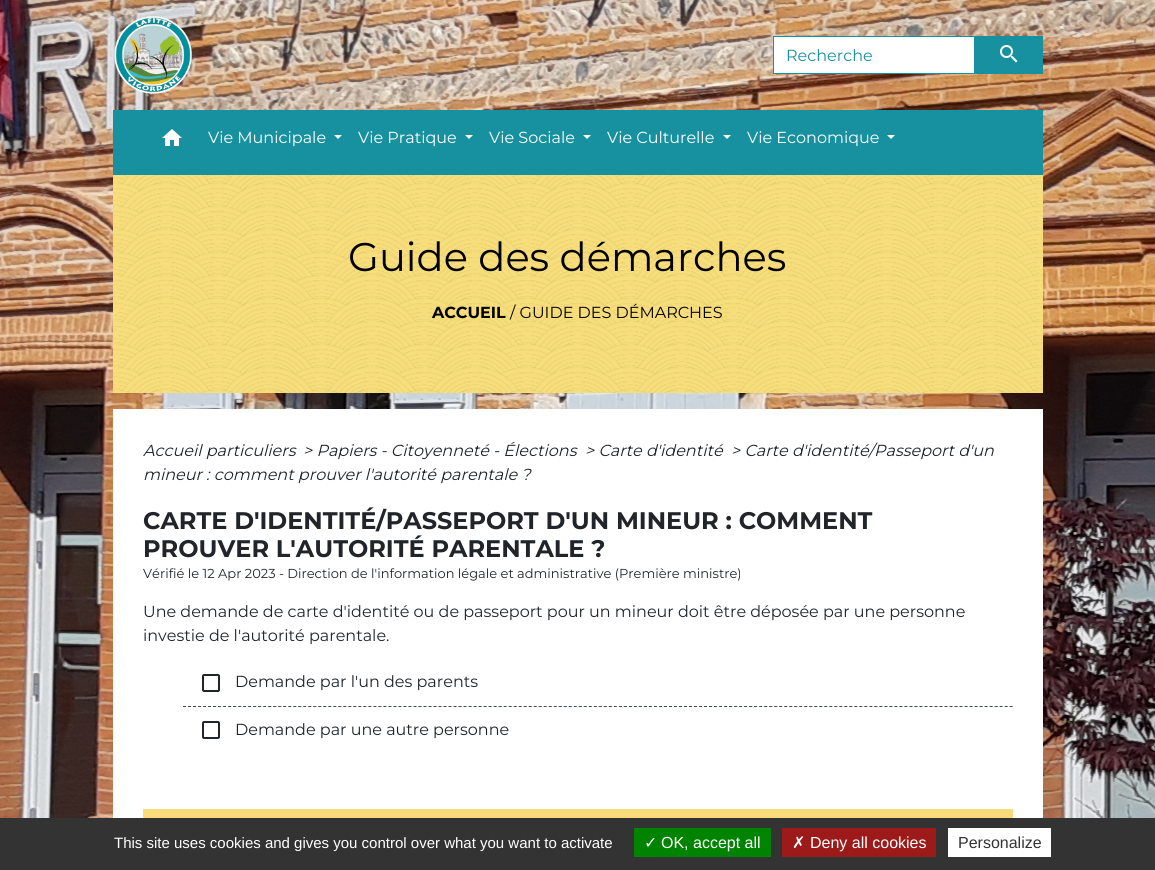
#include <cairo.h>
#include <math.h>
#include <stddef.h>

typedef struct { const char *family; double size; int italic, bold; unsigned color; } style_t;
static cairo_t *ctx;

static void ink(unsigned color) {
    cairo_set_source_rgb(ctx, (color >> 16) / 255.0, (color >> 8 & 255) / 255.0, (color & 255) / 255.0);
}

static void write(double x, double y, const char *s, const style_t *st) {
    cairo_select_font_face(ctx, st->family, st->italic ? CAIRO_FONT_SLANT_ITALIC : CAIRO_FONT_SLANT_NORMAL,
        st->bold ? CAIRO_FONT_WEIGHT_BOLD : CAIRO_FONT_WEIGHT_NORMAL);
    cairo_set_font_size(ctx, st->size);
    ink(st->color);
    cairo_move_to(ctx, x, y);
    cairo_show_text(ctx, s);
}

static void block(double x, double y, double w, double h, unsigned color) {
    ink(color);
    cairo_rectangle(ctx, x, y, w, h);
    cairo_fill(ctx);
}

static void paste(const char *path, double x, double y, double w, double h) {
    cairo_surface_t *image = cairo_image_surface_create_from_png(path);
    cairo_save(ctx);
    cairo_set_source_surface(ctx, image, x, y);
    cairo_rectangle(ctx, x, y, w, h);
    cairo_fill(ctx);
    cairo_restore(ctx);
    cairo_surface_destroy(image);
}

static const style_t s1 = {"Montserrat", 16, 0, 0, 0x1791a0};
static const style_t s2 = {"Montserrat", 16, 0, 0, 0xffffff};
static const style_t s3 = {"Montserrat", 40, 0, 0, 0x000000};
static const style_t s4 = {"Montserrat", 16, 0, 1, 0x000000};
static const style_t s5 = {"Montserrat", 16, 0, 0, 0x000000};
static const style_t s6 = {"Montserrat", 16, 1, 0, 0x212529};
static const style_t s7 = {"Montserrat", 24, 0, 1, 0x212529};
static const style_t s8 = {"Montserrat", 13, 0, 0, 0x212529};
static const style_t s9 = {"Montserrat", 16, 0, 0, 0x212529};
static const style_t s10 = {"Liberation Sans", 15, 0, 0, 0xffffff};
static const style_t s11 = {"DejaVu Sans", 16, 0, 0, 0xffffff};
static const style_t s12 = {"Liberation Sans", 16, 0, 0, 0xffffff};
static const style_t s13 = {"Liberation Sans", 16, 0, 0, 0x333333};

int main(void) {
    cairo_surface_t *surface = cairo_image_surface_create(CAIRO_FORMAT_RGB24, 1155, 870);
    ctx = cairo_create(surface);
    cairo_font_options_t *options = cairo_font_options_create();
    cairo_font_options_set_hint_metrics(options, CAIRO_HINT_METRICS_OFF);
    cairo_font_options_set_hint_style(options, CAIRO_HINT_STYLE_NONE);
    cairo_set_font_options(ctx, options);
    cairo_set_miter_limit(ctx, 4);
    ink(0xffffff);
    cairo_paint(ctx);
    paste("pic1.png", 0, 0, 1155, 818);
    paste("pic2.png", 114, 16, 78, 78);
    ink(0xffffff);
    cairo_rectangle(ctx, 773.5, 36.5, 201, 37);
    cairo_fill_preserve(ctx);
    ink(0x1791a0);
    cairo_set_line_width(ctx, 1);
    cairo_stroke(ctx);
    write(786, 61, "Recherche", &s1);
    block(975, 36, 68, 38, 0x1791a0);
    paste("pic3.png", 1000, 45, 18, 18);
    block(113, 110, 930, 65, 0x1791a0);
    paste("pic4.png", 162, 129, 20, 17);
    write(208, 143, "Vie Municipale", &s2);
    cairo_new_path(ctx);
    cairo_move_to(ctx, 334, 135);
    cairo_line_to(ctx, 342, 135);
    cairo_line_to(ctx, 338, 139);
    cairo_close_path(ctx);
    cairo_fill(ctx);
    write(358, 143, "Vie Pratique", &s2);
    cairo_new_path(ctx);
    cairo_move_to(ctx, 465, 135);
    cairo_line_to(ctx, 473, 135);
    cairo_line_to(ctx, 469, 139);
    cairo_close_path(ctx);
    cairo_fill(ctx);
    write(489, 143, "Vie Sociale", &s2);
    cairo_new_path(ctx);
    cairo_move_to(ctx, 583, 135);
    cairo_line_to(ctx, 591, 135);
    cairo_line_to(ctx, 587, 139);
    cairo_close_path(ctx);
    cairo_fill(ctx);
    write(607, 143, "Vie Culturelle", &s2);
    cairo_new_path(ctx);
    cairo_move_to(ctx, 723, 135);
    cairo_line_to(ctx, 731, 135);
    cairo_line_to(ctx, 727, 139);
    cairo_close_path(ctx);
    cairo_fill(ctx);
    write(747, 143, "Vie Economique", &s2);
    cairo_new_path(ctx);
    cairo_move_to(ctx, 887, 135);
    cairo_line_to(ctx, 895, 135);
    cairo_line_to(ctx, 891, 139);
    cairo_close_path(ctx);
    cairo_fill(ctx);
    block(113, 175, 930, 218, 0xf8de7b);
    paste("pic5.png", 113, 175, 930, 218);
    write(348, 271, "Guide des démarches", &s3);
    write(432, 318, "ACCUEIL", &s4);
    write(510, 318, "/ GUIDE DES DÉMARCHES", &s5);
    block(113, 409, 930, 409, 0xffffff);
    write(143, 456, "Accueil particuliers", &s6);
    write(303, 456, "> Papiers - Citoyenneté - Élections", &s6);
    write(585, 456, "> Carte d'identité", &s6);
    write(731, 456, "> Carte d'identité/Passeport d'un", &s6);
    write(143, 480, "mineur : comment prouver l'autorité parentale ?", &s6);
    write(143, 529, "CARTE D'IDENTITÉ/PASSEPORT D'UN MINEUR : COMMENT", &s7);
    write(143, 557, "PROUVER L'AUTORITÉ PARENTALE ?", &s7);
    write(143, 578, "Vérifié le 12 Apr 2023 - Direction de l'information légale et administrative (Première ministre)", &s8);
    write(143, 617, "Une demande de carte d'identité ou de passeport pour un mineur doit être déposée par une personne", &s9);
    write(143, 641, "investie de l'autorité parentale.", &s9);
    paste("pic6.png", 202, 674, 18, 18);
    write(235, 687, "Demande par l'un des parents", &s9);
    cairo_new_path(ctx);
    cairo_move_to(ctx, 183, 706.5);
    cairo_line_to(ctx, 1013, 706.5);
    ink(0x414856);
    cairo_set_dash(ctx, (double[]){3, 2.01}, 2, 0);
    cairo_stroke(ctx);
    paste("pic6.png", 202, 721, 18, 18);
    write(235, 735, "Demande par une autre personne", &s9);
    cairo_rectangle(ctx, 143.5, 809.5, 869, 52);
    ink(0xfadb7b);
    cairo_set_dash(ctx, NULL, 0, 0);
    cairo_stroke(ctx);
    block(144, 810, 868, 8, 0xfadb7b);
    block(0, 818, 1155, 52, 0x333333);
    write(114, 848, "This site uses cookies and gives you control over what you want to activate", &s10);
    block(634, 828, 137, 29, 0x008300);
    write(644, 848, "✓", &s11);
    write(661, 848, "OK, accept all", &s12);
    block(782, 828, 154, 29, 0x9c1a1a);
    write(792, 848, "✗", &s11);
    write(810, 848, "Deny all cookies", &s12);
    block(948, 828, 103, 29, 0xffffff);
    write(958, 848, "Personalize", &s13);
    cairo_surface_write_to_png(surface, "screenshot.png");
    cairo_font_options_destroy(options);
    cairo_destroy(ctx);
    cairo_surface_destroy(surface);
    return 0;
}
